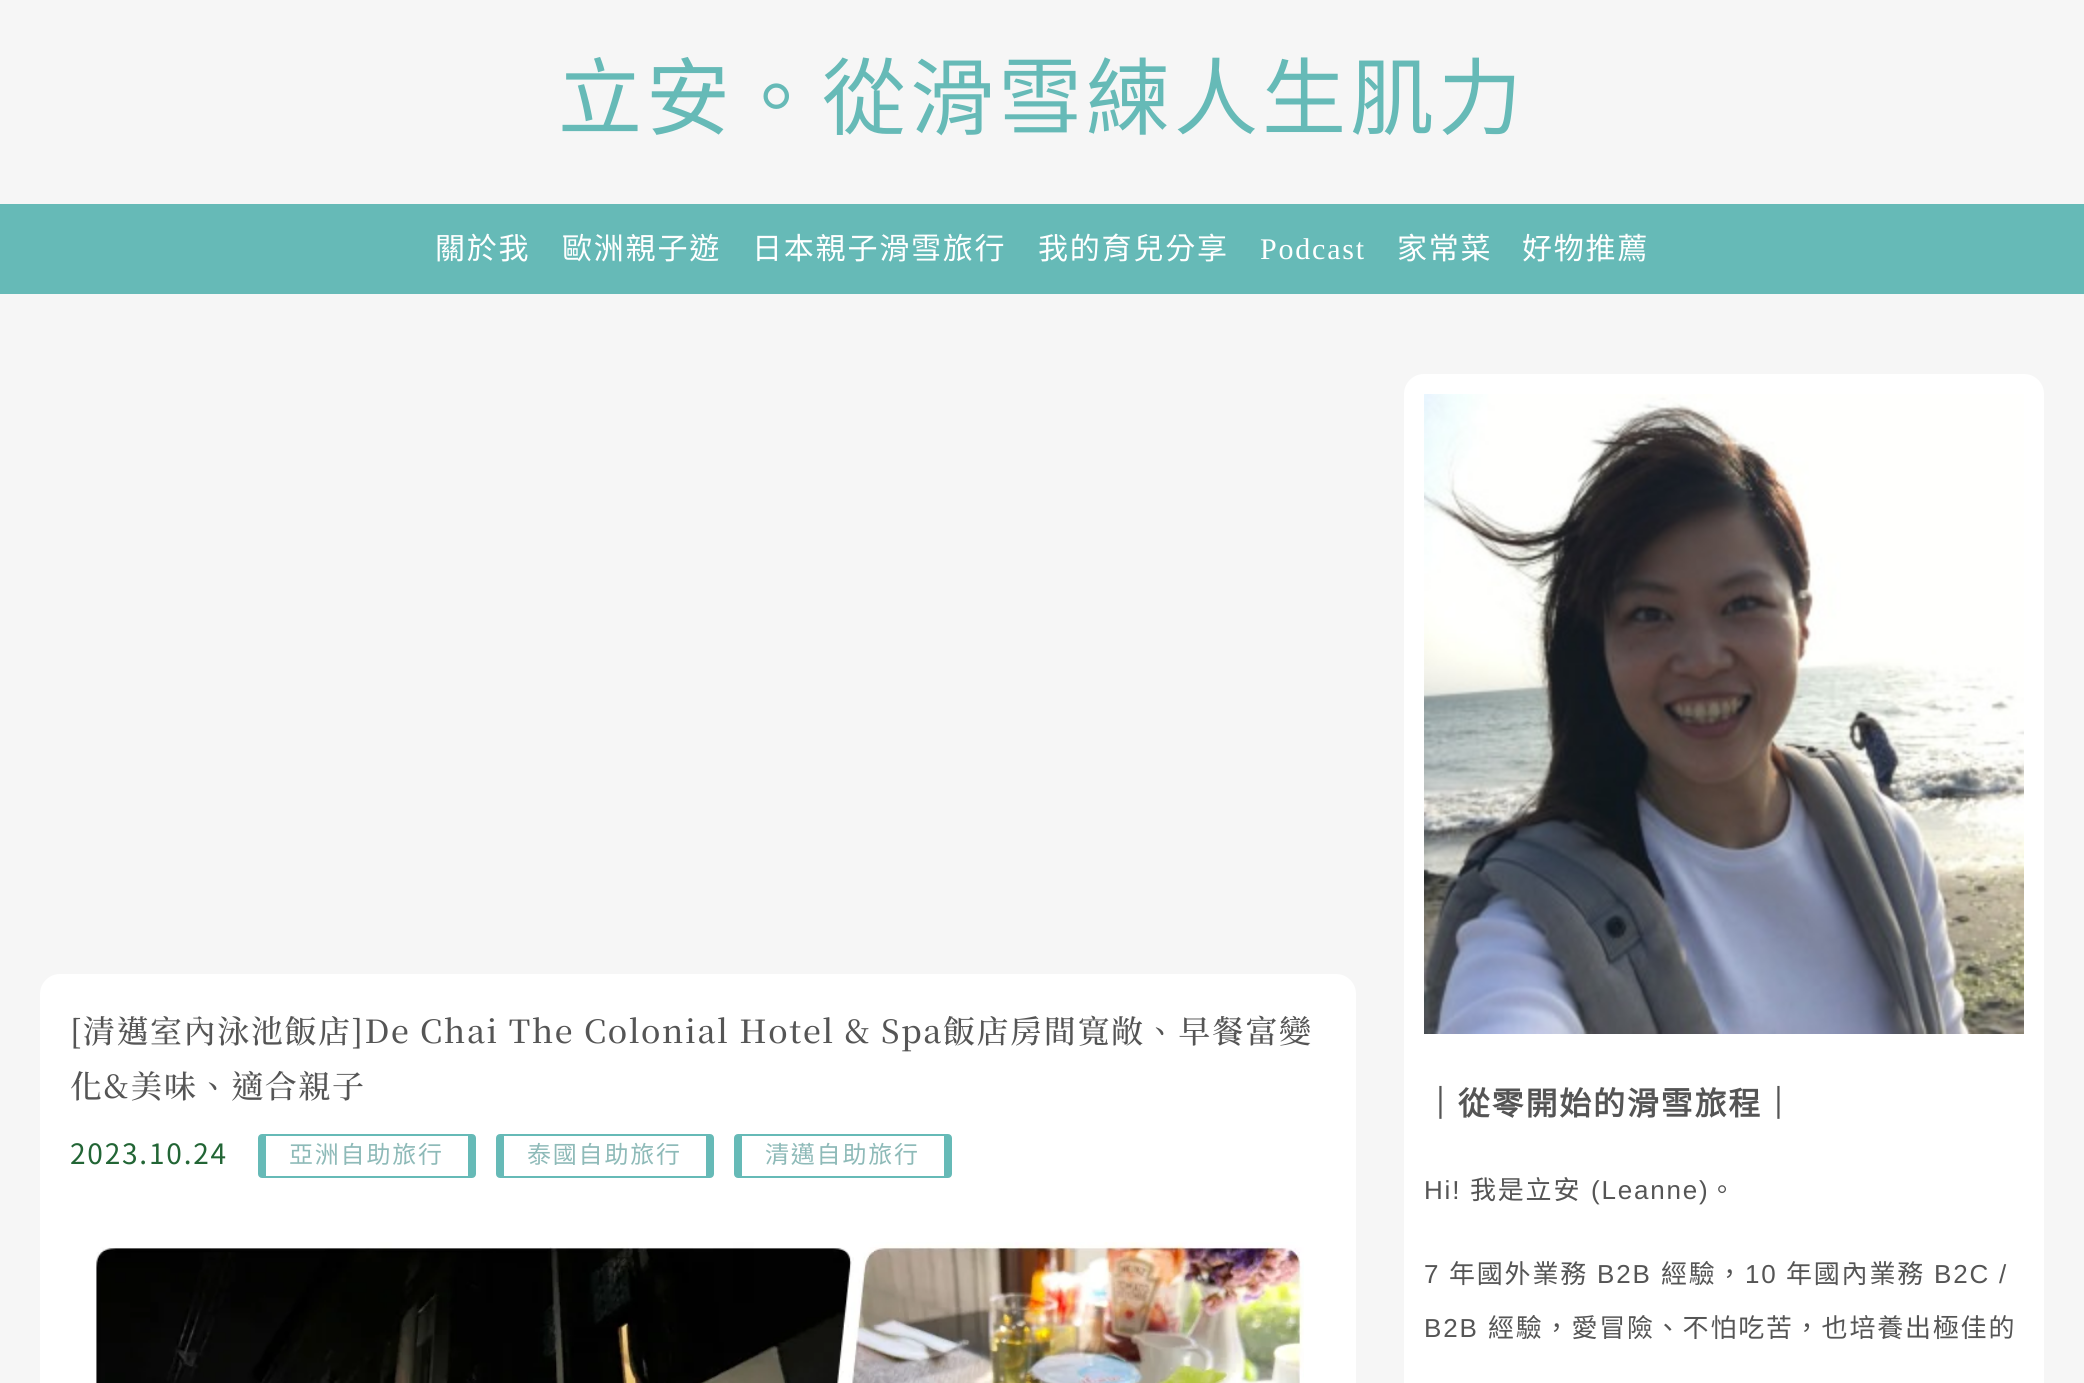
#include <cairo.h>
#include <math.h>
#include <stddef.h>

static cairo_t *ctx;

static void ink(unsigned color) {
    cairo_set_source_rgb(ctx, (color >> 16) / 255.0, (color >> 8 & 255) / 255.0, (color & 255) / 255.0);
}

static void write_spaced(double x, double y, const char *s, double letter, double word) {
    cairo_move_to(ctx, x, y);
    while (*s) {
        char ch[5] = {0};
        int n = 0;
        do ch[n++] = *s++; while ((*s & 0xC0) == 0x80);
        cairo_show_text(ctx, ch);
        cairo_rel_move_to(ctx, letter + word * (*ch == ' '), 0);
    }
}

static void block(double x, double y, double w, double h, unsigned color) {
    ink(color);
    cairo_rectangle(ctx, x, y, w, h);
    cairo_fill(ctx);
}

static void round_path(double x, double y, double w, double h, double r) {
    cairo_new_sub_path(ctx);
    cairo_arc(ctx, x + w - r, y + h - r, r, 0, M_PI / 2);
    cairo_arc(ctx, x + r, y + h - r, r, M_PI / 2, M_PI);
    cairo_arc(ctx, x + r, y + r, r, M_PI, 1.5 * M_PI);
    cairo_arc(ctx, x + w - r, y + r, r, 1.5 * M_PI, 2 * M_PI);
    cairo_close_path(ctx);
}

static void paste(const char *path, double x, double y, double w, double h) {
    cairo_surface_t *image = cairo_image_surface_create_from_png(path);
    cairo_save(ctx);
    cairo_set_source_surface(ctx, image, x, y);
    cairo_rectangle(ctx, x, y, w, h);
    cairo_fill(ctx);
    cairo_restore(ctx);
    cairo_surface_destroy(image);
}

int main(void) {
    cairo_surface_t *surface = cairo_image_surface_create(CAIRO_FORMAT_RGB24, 2084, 1383);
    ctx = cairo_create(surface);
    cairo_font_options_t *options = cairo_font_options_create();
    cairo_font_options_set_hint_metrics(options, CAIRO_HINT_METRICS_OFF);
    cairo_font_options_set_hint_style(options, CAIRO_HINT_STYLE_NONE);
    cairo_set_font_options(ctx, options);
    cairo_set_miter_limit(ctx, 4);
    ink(0xf6f6f6);
    cairo_paint(ctx);
    cairo_select_font_face(ctx, "Noto Sans CJK TC", CAIRO_FONT_SLANT_NORMAL, CAIRO_FONT_WEIGHT_NORMAL);
    cairo_set_font_size(ctx, 84);
    ink(0x66bab7);
    write_spaced(558, 128, "立安。從滑雪練人生肌力", 4, 0);
    block(0, 204, 2084, 90, 0x66bab7);
    cairo_set_font_size(ctx, 30);
    ink(0xffffff);
    write_spaced(435, 259, "關於我", 1.8, 0);
    write_spaced(562, 259, "歐洲親子遊", 1.8, 0);
    write_spaced(752, 259, "日本親子滑雪旅行", 1.8, 0);
    write_spaced(1038, 259, "我的育兒分享", 1.8, 0);
    cairo_select_font_face(ctx, "Liberation Serif", CAIRO_FONT_SLANT_NORMAL, CAIRO_FONT_WEIGHT_NORMAL);
    write_spaced(1260, 259, "Podcast", 1.8, 0);
    cairo_select_font_face(ctx, "Noto Sans CJK TC", CAIRO_FONT_SLANT_NORMAL, CAIRO_FONT_WEIGHT_NORMAL);
    write_spaced(1397, 259, "家常菜", 1.8, 0);
    write_spaced(1522, 259, "好物推薦", 1.8, 0);
    round_path(40, 974, 1316, 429, 20);
    cairo_fill(ctx);
    cairo_select_font_face(ctx, "Noto Serif TC Medium", CAIRO_FONT_SLANT_NORMAL, CAIRO_FONT_WEIGHT_NORMAL);
    cairo_set_font_size(ctx, 32);
    ink(0x555555);
    write_spaced(70, 1043, "[清邁室內泳池飯店]De Chai The Colonial Hotel & Spa飯店房間寬敞、早餐富變", 1.6, 0);
    write_spaced(70, 1098, "化&美味、適合親子", 1.6, 0);
    cairo_select_font_face(ctx, "Noto Sans TC", CAIRO_FONT_SLANT_NORMAL, CAIRO_FONT_WEIGHT_NORMAL);
    cairo_set_font_size(ctx, 28);
    ink(0x226535);
    write_spaced(70, 1164, "2023.10.24", 1.8, 0);
    round_path(259, 1135, 216, 42, 3);
    ink(0x66bab7);
    cairo_stroke(ctx);
    block(468, 1136, 6, 40, 0x66bab7);
    block(260, 1136, 6, 40, 0x66bab7);
    cairo_select_font_face(ctx, "Noto Sans CJK TC", CAIRO_FONT_SLANT_NORMAL, CAIRO_FONT_WEIGHT_NORMAL);
    cairo_set_font_size(ctx, 24);
    ink(0x8ebab8);
    write_spaced(289, 1163, "亞洲自助旅行", 1.8, 0);
    round_path(497, 1135, 216, 42, 3);
    ink(0x66bab7);
    cairo_stroke(ctx);
    block(706, 1136, 6, 40, 0x66bab7);
    block(498, 1136, 6, 40, 0x66bab7);
    ink(0x8ebab8);
    write_spaced(527, 1163, "泰國自助旅行", 1.8, 0);
    round_path(735, 1135, 216, 42, 3);
    ink(0x66bab7);
    cairo_stroke(ctx);
    block(944, 1136, 6, 40, 0x66bab7);
    block(736, 1136, 6, 40, 0x66bab7);
    ink(0x8ebab8);
    write_spaced(765, 1163, "清邁自助旅行", 1.8, 0);
    paste("pic1.png", 96, 1242, 1208, 141);
    ink(0xffffff);
    round_path(1404, 374, 640, 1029, 20);
    cairo_fill(ctx);
    paste("pic2.png", 1424, 394, 600, 640);
    cairo_select_font_face(ctx, "Noto Sans CJK TC", CAIRO_FONT_SLANT_NORMAL, CAIRO_FONT_WEIGHT_BOLD);
    cairo_set_font_size(ctx, 32);
    ink(0x555555);
    write_spaced(1424, 1115, "｜從零開始的滑雪旅程｜", 1.8, 0);
    cairo_select_font_face(ctx, "Liberation Sans", CAIRO_FONT_SLANT_NORMAL, CAIRO_FONT_WEIGHT_NORMAL);
    cairo_set_font_size(ctx, 26);
    write_spaced(1424, 1199, "Hi!", 1.8, 0);
    cairo_select_font_face(ctx, "Noto Sans CJK TC", CAIRO_FONT_SLANT_NORMAL, CAIRO_FONT_WEIGHT_NORMAL);
    write_spaced(1470, 1199, "我是立安", 1.8, 0);
    cairo_select_font_face(ctx, "Liberation Sans", CAIRO_FONT_SLANT_NORMAL, CAIRO_FONT_WEIGHT_NORMAL);
    write_spaced(1591, 1199, "(Leanne)", 1.8, 0);
    cairo_select_font_face(ctx, "Noto Sans CJK TC", CAIRO_FONT_SLANT_NORMAL, CAIRO_FONT_WEIGHT_NORMAL);
    write_spaced(1709, 1199, "。", 1.8, 0);
    cairo_select_font_face(ctx, "Liberation Sans", CAIRO_FONT_SLANT_NORMAL, CAIRO_FONT_WEIGHT_NORMAL);
    write_spaced(1424, 1283, "7", 1.8, 0);
    cairo_select_font_face(ctx, "Noto Sans CJK TC", CAIRO_FONT_SLANT_NORMAL, CAIRO_FONT_WEIGHT_NORMAL);
    write_spaced(1449, 1283, "年國外業務", 1.8, 0);
    cairo_select_font_face(ctx, "Liberation Sans", CAIRO_FONT_SLANT_NORMAL, CAIRO_FONT_WEIGHT_NORMAL);
    write_spaced(1597, 1283, "B2B", 1.8, 0);
    cairo_select_font_face(ctx, "Noto Sans CJK TC", CAIRO_FONT_SLANT_NORMAL, CAIRO_FONT_WEIGHT_NORMAL);
    write_spaced(1661, 1283, "經驗，", 1.8, 0);
    cairo_select_font_face(ctx, "Liberation Sans", CAIRO_FONT_SLANT_NORMAL, CAIRO_FONT_WEIGHT_NORMAL);
    write_spaced(1745, 1283, "10", 1.8, 0);
    cairo_select_font_face(ctx, "Noto Sans CJK TC", CAIRO_FONT_SLANT_NORMAL, CAIRO_FONT_WEIGHT_NORMAL);
    write_spaced(1786, 1283, "年國內業務", 1.8, 0);
    cairo_select_font_face(ctx, "Liberation Sans", CAIRO_FONT_SLANT_NORMAL, CAIRO_FONT_WEIGHT_NORMAL);
    write_spaced(1934, 1283, "B2C /", 1.8, 0);
    write_spaced(1424, 1337, "B2B", 1.8, 0);
    cairo_select_font_face(ctx, "Noto Sans CJK TC", CAIRO_FONT_SLANT_NORMAL, CAIRO_FONT_WEIGHT_NORMAL);
    write_spaced(1488, 1337, "經驗，愛冒險、不怕吃苦，也培養出極佳的", 1.8, 0);
    cairo_surface_write_to_png(surface, "screenshot.png");
    cairo_font_options_destroy(options);
    cairo_destroy(ctx);
    cairo_surface_destroy(surface);
    return 0;
}
